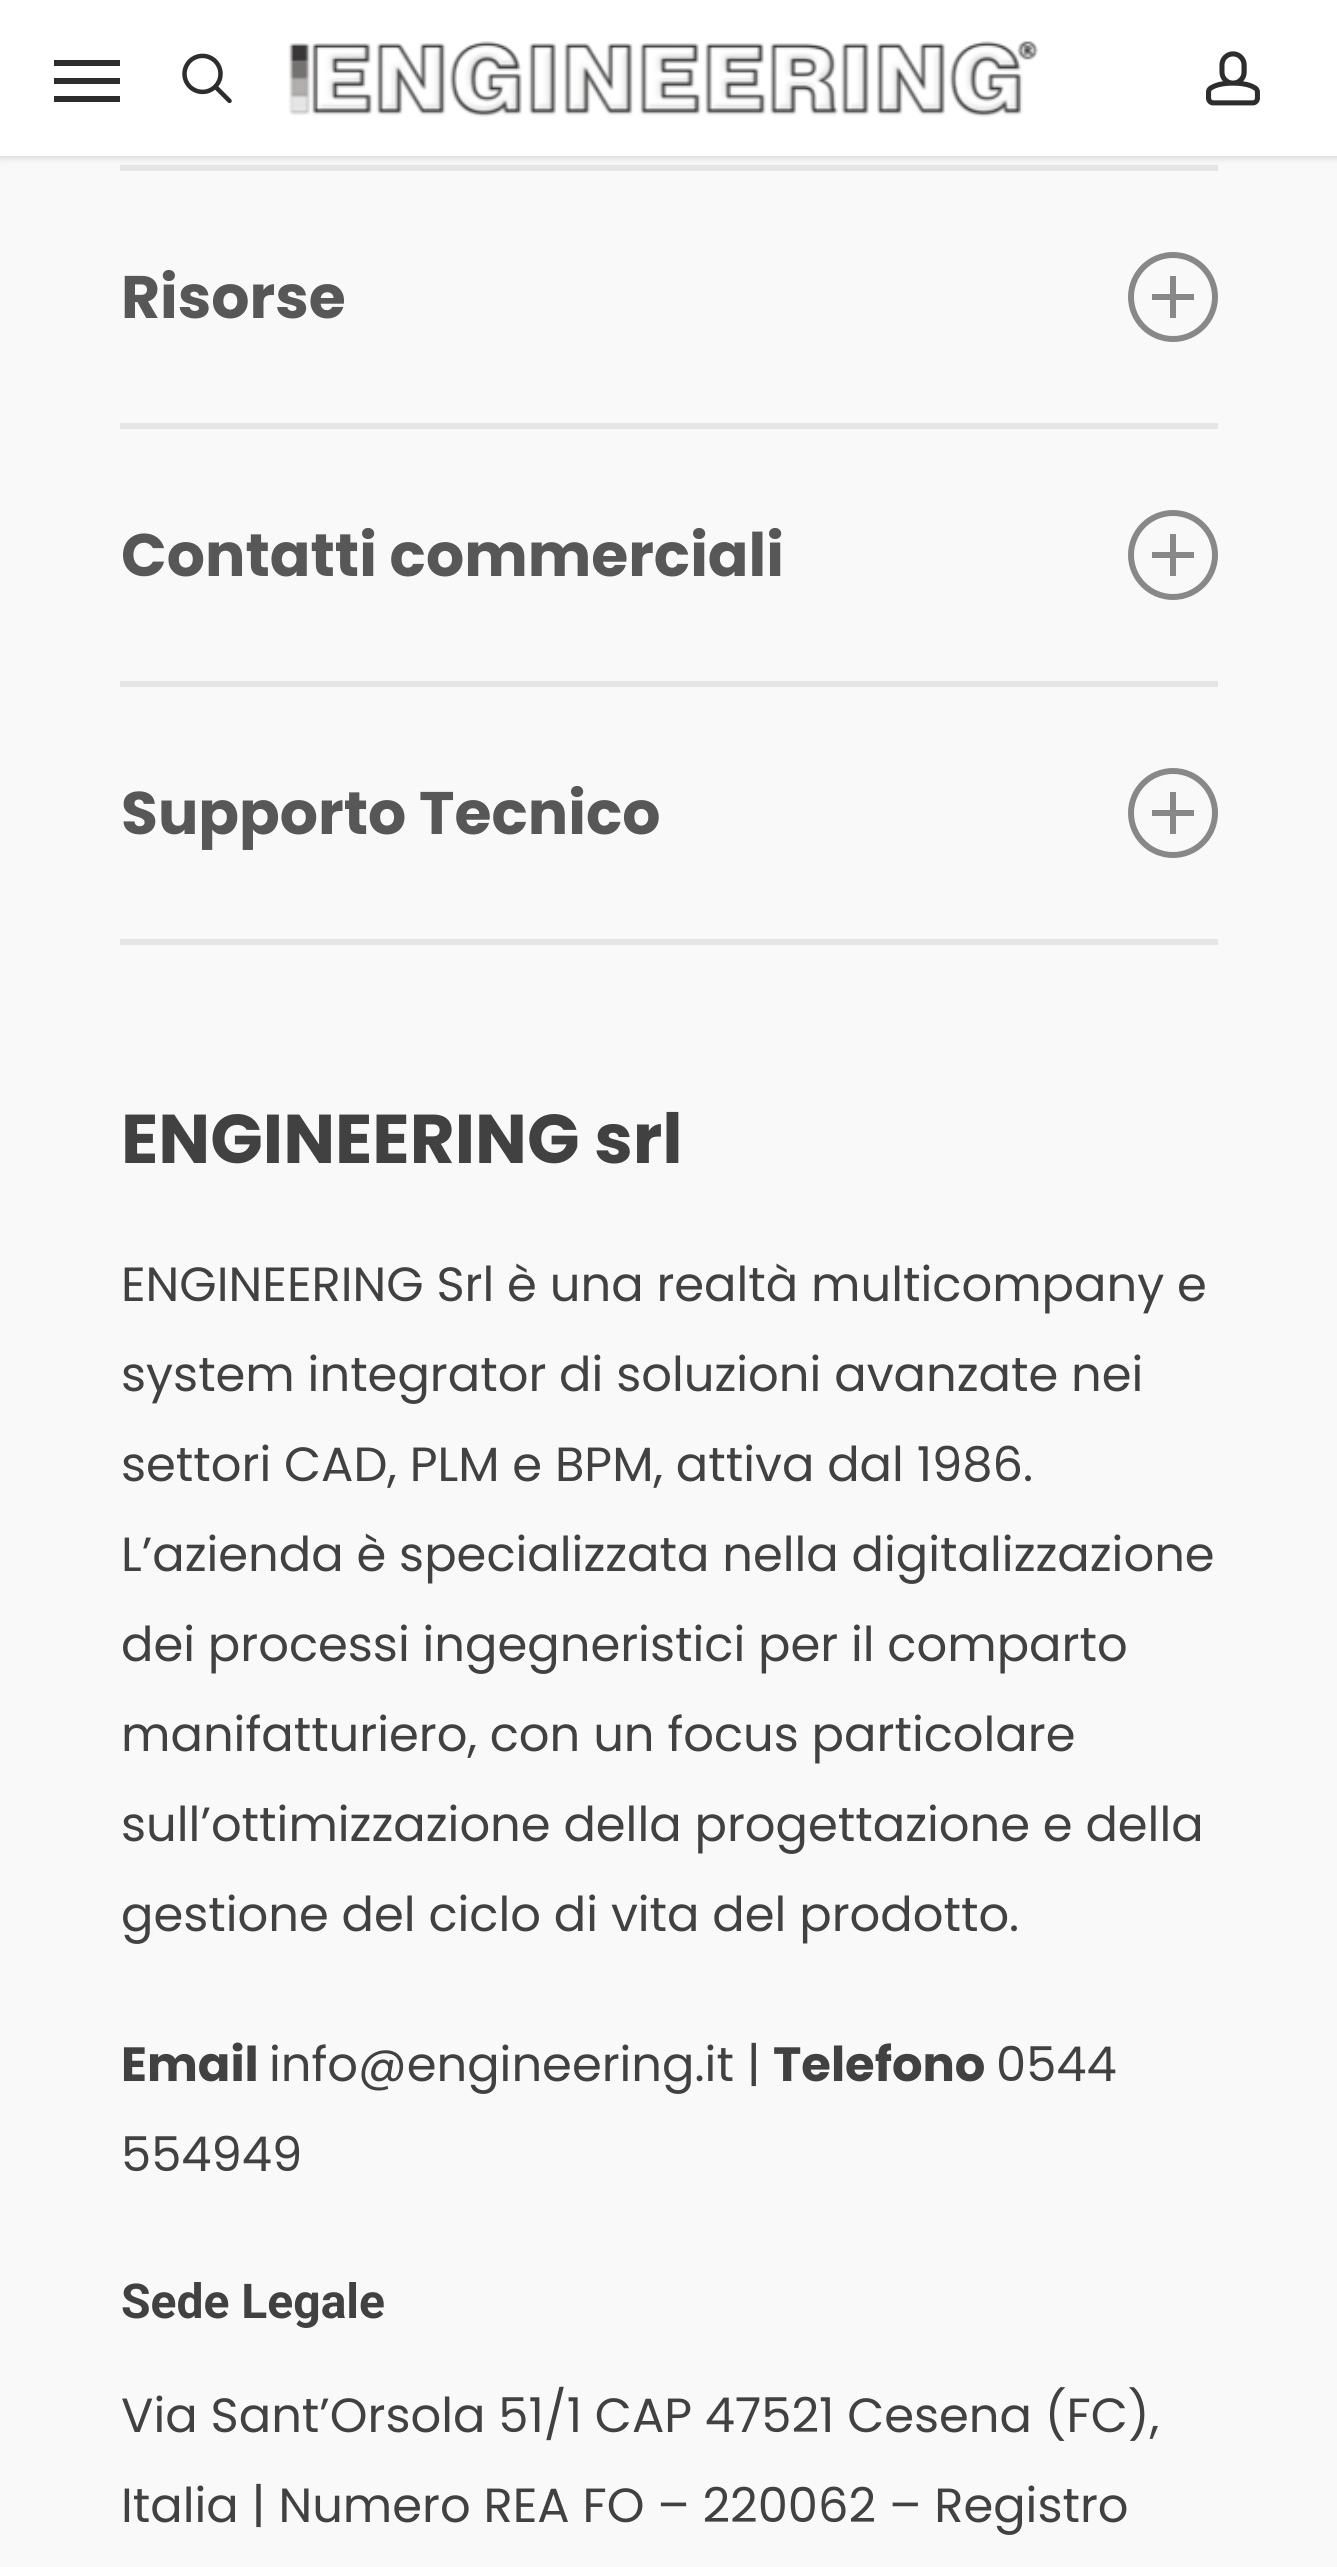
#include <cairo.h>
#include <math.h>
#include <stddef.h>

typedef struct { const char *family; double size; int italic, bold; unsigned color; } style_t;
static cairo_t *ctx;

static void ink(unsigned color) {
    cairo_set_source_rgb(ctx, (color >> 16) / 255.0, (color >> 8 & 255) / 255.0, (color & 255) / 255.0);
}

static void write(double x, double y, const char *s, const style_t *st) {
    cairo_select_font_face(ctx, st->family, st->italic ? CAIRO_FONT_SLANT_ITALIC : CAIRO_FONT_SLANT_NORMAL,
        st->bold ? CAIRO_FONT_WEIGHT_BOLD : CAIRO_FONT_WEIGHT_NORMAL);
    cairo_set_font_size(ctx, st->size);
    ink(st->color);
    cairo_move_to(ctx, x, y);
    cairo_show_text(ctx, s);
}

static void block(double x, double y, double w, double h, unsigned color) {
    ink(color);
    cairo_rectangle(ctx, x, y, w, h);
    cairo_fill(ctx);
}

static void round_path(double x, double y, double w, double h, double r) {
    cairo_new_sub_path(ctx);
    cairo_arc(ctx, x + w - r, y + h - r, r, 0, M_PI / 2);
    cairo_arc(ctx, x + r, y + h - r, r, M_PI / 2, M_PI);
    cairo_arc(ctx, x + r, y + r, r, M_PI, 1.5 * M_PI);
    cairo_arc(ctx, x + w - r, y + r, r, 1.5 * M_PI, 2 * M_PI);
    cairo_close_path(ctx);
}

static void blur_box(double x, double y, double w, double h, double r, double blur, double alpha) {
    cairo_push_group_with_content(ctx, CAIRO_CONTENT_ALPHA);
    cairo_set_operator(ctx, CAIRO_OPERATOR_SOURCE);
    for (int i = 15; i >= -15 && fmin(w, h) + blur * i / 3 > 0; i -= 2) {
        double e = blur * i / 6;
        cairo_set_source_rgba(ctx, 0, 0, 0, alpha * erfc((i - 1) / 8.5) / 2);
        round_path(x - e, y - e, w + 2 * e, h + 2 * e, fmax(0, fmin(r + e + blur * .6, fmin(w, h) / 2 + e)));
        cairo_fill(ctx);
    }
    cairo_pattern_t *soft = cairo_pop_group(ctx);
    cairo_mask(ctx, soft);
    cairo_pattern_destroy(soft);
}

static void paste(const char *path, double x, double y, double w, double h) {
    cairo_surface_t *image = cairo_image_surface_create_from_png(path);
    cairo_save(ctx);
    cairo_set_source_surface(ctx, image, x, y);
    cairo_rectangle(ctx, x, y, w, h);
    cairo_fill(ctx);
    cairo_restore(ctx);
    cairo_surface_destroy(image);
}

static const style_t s1 = {"Poppins", 60, 0, 1, 0x575757};
static const style_t s2 = {"Poppins", 69, 0, 1, 0x414141};
static const style_t s3 = {"Poppins", 48, 0, 0, 0x414141};
static const style_t s4 = {"Poppins", 48, 0, 1, 0x414141};
static const style_t s5 = {"Roboto", 48, 0, 1, 0x414141};

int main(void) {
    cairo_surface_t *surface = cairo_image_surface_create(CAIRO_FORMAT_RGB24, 1337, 2567);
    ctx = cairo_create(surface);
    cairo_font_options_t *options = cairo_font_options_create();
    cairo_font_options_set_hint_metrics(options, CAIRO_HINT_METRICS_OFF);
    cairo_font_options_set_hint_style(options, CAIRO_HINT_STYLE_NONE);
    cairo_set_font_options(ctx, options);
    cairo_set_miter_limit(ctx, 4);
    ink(0xf9f9f9);
    cairo_paint(ctx);
    block(120, 165, 1098, 6, 0xe5e5e5);
    ink(0x000000);
    blur_box(0, 0, 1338, 156, 0, 4.5, 0.22);
    block(0, 0, 1337, 156, 0xffffff);
    paste("pic1.png", 288, 41, 750, 76);
    block(54, 60, 66, 6, 0x2d2d2d);
    block(54, 96, 66, 6, 0x2d2d2d);
    block(54, 78, 66, 6, 0x2d2d2d);
    paste("pic2.png", 182, 53, 50, 51);
    paste("pic3.png", 1206, 51, 54, 55);
    block(120, 423, 1098, 6, 0xe5e5e5);
    write(121, 318, "Risorse", &s1);
    cairo_new_path(ctx);
    cairo_arc(ctx, 1173, 297, 42, 0, 2 * M_PI);
    ink(0x888888);
    cairo_set_line_width(ctx, 6);
    cairo_stroke(ctx);
    block(1152, 294, 42, 6, 0x888888);
    block(1170, 276, 6, 42, 0x888888);
    block(120, 681, 1098, 6, 0xe5e5e5);
    write(121, 576, "Contatti commerciali", &s1);
    cairo_new_path(ctx);
    cairo_arc(ctx, 1173, 555, 42, 0, 2 * M_PI);
    ink(0x888888);
    cairo_stroke(ctx);
    block(1152, 552, 42, 6, 0x888888);
    block(1170, 534, 6, 42, 0x888888);
    block(120, 939, 1098, 6, 0xe5e5e5);
    write(121, 834, "Supporto Tecnico", &s1);
    cairo_new_path(ctx);
    cairo_arc(ctx, 1173, 813, 42, 0, 2 * M_PI);
    ink(0x888888);
    cairo_stroke(ctx);
    block(1152, 810, 42, 6, 0x888888);
    block(1170, 792, 6, 42, 0x888888);
    write(121, 1163, "ENGINEERING srl", &s2);
    write(121, 1301, "ENGINEERING Srl è una realtà multicompany e", &s3);
    write(121, 1391, "system integrator di soluzioni avanzate nei", &s3);
    write(121, 1481, "settori CAD, PLM e BPM, attiva dal 1986.", &s3);
    write(121, 1571, "L’azienda è specializzata nella digitalizzazione", &s3);
    write(121, 1661, "dei processi ingegneristici per il comparto", &s3);
    write(121, 1751, "manifatturiero, con un focus particolare", &s3);
    write(121, 1841, "sull’ottimizzazione della progettazione e della", &s3);
    write(121, 1931, "gestione del ciclo di vita del prodotto.", &s3);
    write(121, 2081, "Email", &s4);
    write(269, 2081, "info@engineering.it |", &s3);
    write(773, 2081, "Telefono", &s4);
    write(996, 2081, "0544", &s3);
    write(121, 2171, "554949", &s3);
    write(121, 2318, "Sede Legale", &s5);
    write(121, 2432, "Via Sant’Orsola 51/1 CAP 47521 Cesena (FC),", &s3);
    write(121, 2522, "Italia | Numero REA FO – 220062 – Registro", &s3);
    cairo_surface_write_to_png(surface, "screenshot.png");
    cairo_font_options_destroy(options);
    cairo_destroy(ctx);
    cairo_surface_destroy(surface);
    return 0;
}
